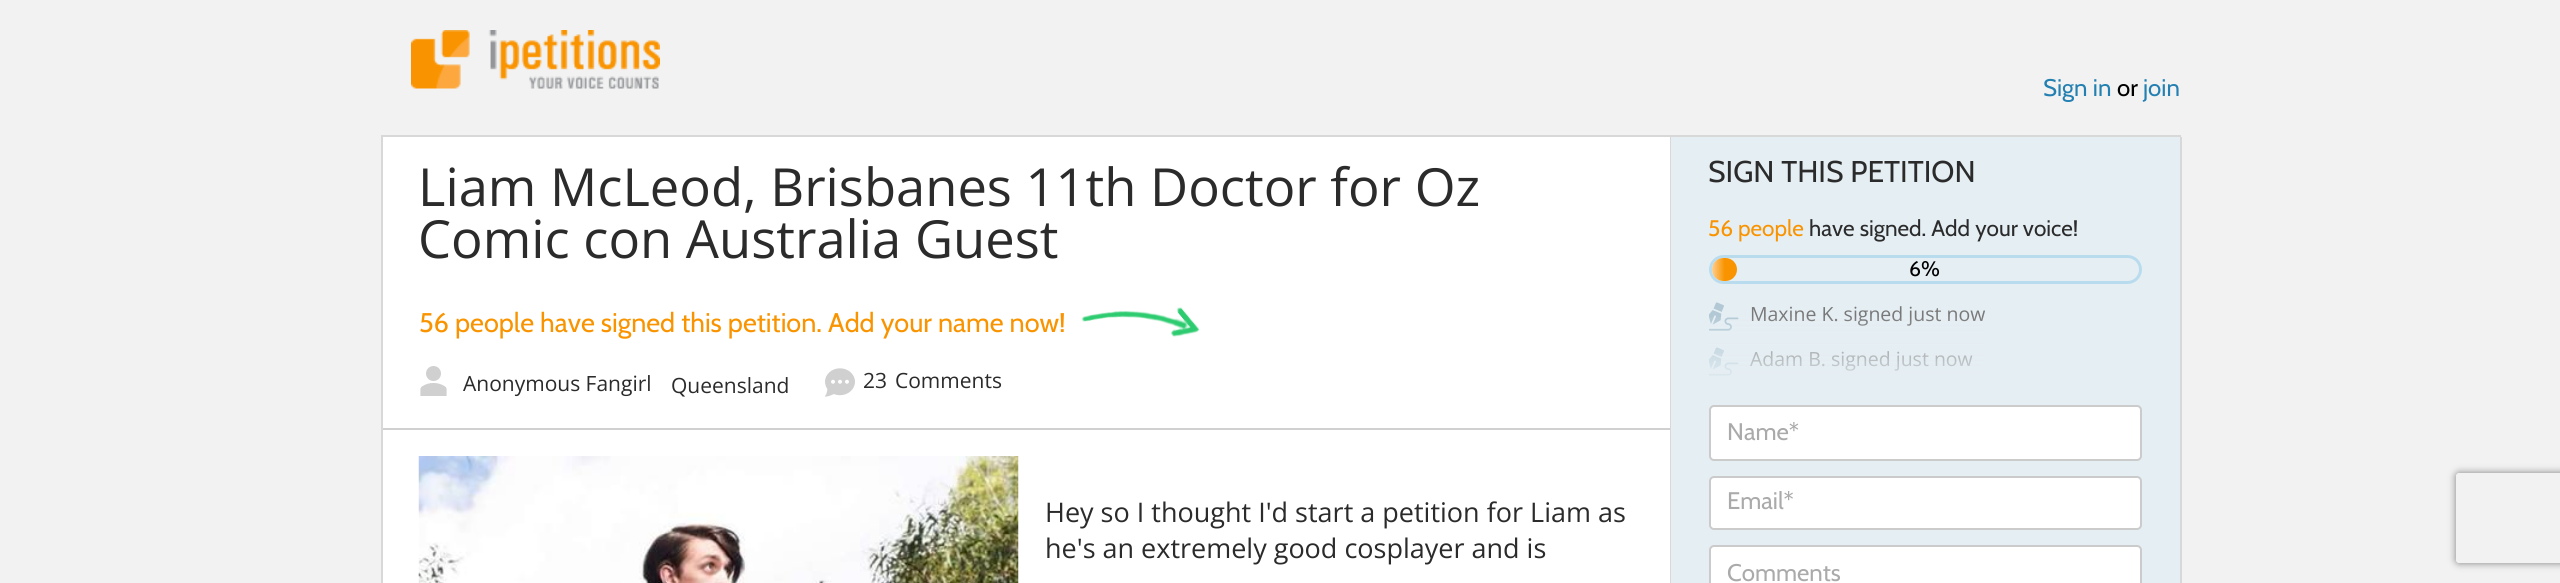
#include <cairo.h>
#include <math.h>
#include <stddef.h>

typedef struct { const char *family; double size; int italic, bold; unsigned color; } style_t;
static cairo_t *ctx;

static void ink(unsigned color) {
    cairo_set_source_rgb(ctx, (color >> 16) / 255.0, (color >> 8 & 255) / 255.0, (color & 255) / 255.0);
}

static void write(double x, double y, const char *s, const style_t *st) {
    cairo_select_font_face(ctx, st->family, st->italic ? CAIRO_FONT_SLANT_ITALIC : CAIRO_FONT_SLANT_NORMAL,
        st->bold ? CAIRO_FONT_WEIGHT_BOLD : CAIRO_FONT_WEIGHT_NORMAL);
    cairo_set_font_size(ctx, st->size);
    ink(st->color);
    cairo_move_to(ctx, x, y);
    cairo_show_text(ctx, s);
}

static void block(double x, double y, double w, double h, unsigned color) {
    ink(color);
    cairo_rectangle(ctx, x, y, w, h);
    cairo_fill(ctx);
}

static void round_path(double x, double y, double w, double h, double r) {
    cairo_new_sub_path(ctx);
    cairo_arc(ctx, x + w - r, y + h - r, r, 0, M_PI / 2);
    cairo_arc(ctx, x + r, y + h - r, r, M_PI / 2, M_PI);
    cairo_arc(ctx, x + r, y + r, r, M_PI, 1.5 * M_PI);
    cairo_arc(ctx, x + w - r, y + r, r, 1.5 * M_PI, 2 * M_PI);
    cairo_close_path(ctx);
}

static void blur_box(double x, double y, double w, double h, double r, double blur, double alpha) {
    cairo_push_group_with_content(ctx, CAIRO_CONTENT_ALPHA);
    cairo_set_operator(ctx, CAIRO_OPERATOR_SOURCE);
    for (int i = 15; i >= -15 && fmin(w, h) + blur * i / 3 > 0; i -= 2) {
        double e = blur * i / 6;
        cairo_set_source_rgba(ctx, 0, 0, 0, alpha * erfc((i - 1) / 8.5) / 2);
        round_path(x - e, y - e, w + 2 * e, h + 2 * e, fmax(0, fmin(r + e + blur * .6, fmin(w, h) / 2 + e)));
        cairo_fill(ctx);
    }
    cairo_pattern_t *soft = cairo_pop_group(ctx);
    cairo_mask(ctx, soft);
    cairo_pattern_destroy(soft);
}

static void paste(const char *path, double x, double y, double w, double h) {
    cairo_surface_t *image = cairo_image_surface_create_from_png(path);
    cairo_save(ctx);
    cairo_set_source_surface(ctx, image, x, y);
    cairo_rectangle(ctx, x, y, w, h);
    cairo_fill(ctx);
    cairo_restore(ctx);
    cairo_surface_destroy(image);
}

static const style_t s1 = {"Cabin", 24, 0, 0, 0x2380b1};
static const style_t s2 = {"Cabin", 24, 0, 0, 0x000000};
static const style_t s3 = {"Open Sans", 52.5, 0, 0, 0x2b2b2b};
static const style_t s4 = {"Cabin", 27, 0, 0, 0xf99400};
static const style_t s5 = {"Open Sans", 21, 0, 0, 0x2b2b2b};
static const style_t s6 = {"Open Sans", 27, 0, 0, 0x2b2b2b};
static const style_t s7 = {"Cabin", 30, 0, 0, 0x2b2b2b};
static const style_t s8 = {"Cabin", 22.5, 0, 0, 0xf99400};
static const style_t s9 = {"Cabin", 22.5, 0, 0, 0x2b2b2b};
static const style_t s10 = {"Cabin", 21, 0, 0, 0x000000};
static const style_t s11 = {"Open Sans", 19.5, 0, 0, 0x787878};
static const style_t s12 = {"Cabin", 24, 0, 0, 0xaaaaaa};

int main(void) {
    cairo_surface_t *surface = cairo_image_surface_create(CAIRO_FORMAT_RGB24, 2560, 583);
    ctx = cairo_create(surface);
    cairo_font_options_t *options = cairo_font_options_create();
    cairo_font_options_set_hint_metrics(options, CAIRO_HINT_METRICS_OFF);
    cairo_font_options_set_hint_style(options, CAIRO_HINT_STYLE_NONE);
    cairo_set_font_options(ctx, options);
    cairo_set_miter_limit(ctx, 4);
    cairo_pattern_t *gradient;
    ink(0xf2f2f2);
    cairo_paint(ctx);
    paste("pic1.png", 411, 30, 249, 59);
    write(2043, 96, "Sign in", &s1);
    write(2117, 96, "or", &s2);
    write(2143, 96, "join", &s1);
    block(383, 137, 1287, 446, 0xffffff);
    cairo_rectangle(ctx, 382, 136, 1798, 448);
    ink(0xd8d8d8);
    cairo_stroke(ctx);
    write(418, 206, "Liam McLeod, Brisbanes 11th Doctor for Oz", &s3);
    write(418, 258, "Comic con Australia Guest", &s3);
    write(419, 332, "56 people have signed this petition. Add your name now!", &s4);
    paste("pic2.png", 1081, 307, 119, 30);
    block(383, 428, 1287, 2, 0xd0d0d0);
    paste("pic3.png", 420, 366, 27, 30);
    write(463, 391, "Anonymous Fangirl", &s5);
    write(671, 393, "Queensland", &s5);
    paste("pic4.png", 825, 368, 30, 29);
    write(863, 388, "23", &s5);
    write(895, 388, "Comments", &s5);
    paste("pic5.png", 418, 456, 601, 127);
    write(1045, 522, "Hey so I thought I'd start a petition for Liam as", &s6);
    write(1045, 558, "he's an extremely good cosplayer and is", &s6);
    block(1670, 137, 1, 446, 0xd8d8d8);
    block(1671, 137, 509, 446, 0xe5eef3);
    block(2181, 137, 1, 446, 0xd8d8d8);
    write(1708, 182, "SIGN THIS PETITION", &s7);
    write(1708, 236, "56 people", &s8);
    write(1809, 236, "have signed. Add your voice!", &s9);
    round_path(1710.5, 256.5, 430, 26, 13);
    ink(0xb8dcee);
    cairo_set_line_width(ctx, 3);
    cairo_stroke(ctx);
    gradient = cairo_pattern_create_linear(1712, 269, 1737, 269);
    cairo_pattern_add_color_stop_rgba(gradient, 0, 1, 0.808, 0.565, 1);
    cairo_pattern_add_color_stop_rgba(gradient, 0.5, 0.976, 0.58, 0, 1);
    cairo_set_source(ctx, gradient);
    cairo_pattern_destroy(gradient);
    round_path(1712, 258, 25, 23, 11.5);
    cairo_fill(ctx);
    write(1909, 276, "6%", &s10);
    paste("pic6.png", 1709, 302, 30, 29);
    write(1750, 321, "Maxine K. signed just now", &s11);
    paste("pic6.png", 1709, 347, 30, 29);
    write(1750, 366, "Adam B. signed just now", &s11);
    gradient = cairo_pattern_create_linear(1925, 315, 1925, 390);
    cairo_pattern_add_color_stop_rgba(gradient, 0, 0.898, 0.933, 0.953, 0);
    cairo_pattern_add_color_stop_rgba(gradient, 1, 0.898, 0.933, 0.953, 1);
    cairo_set_source(ctx, gradient);
    cairo_pattern_destroy(gradient);
    cairo_rectangle(ctx, 1709, 317, 274, 59);
    cairo_fill(ctx);
    ink(0xffffff);
    round_path(1710, 406, 431, 54, 4);
    cairo_fill_preserve(ctx);
    ink(0xcbcbcb);
    cairo_set_line_width(ctx, 2);
    cairo_stroke(ctx);
    write(1727, 440, "Name*", &s12);
    ink(0xffffff);
    round_path(1710, 477, 431, 52, 4);
    cairo_fill_preserve(ctx);
    ink(0xcbcbcb);
    cairo_stroke(ctx);
    write(1727, 509, "Email*", &s12);
    ink(0xffffff);
    round_path(1710, 546, 431, 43, 4);
    cairo_fill_preserve(ctx);
    ink(0xcbcbcb);
    cairo_stroke(ctx);
    write(1727, 581, "Comments", &s12);
    cairo_save(ctx);
    cairo_set_fill_rule(ctx, CAIRO_FILL_RULE_EVEN_ODD);
    cairo_new_path(ctx);
    cairo_move_to(ctx, 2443, 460);
    cairo_line_to(ctx, 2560, 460);
    cairo_line_to(ctx, 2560, 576);
    cairo_line_to(ctx, 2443, 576);
    cairo_close_path(ctx);
    cairo_move_to(ctx, 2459, 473);
    cairo_line_to(ctx, 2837, 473);
    cairo_curve_to(ctx, 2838.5, 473, 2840, 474.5, 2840, 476);
    cairo_line_to(ctx, 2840, 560);
    cairo_curve_to(ctx, 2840, 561.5, 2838.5, 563, 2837, 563);
    cairo_line_to(ctx, 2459, 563);
    cairo_curve_to(ctx, 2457.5, 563, 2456, 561.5, 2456, 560);
    cairo_line_to(ctx, 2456, 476);
    cairo_curve_to(ctx, 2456, 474.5, 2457.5, 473, 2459, 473);
    cairo_close_path(ctx);
    cairo_clip(ctx);
    ink(0x808080);
    blur_box(2456, 473, 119, 90, 3, 4, 1);
    cairo_restore(ctx);
    cairo_surface_write_to_png(surface, "screenshot.png");
    cairo_font_options_destroy(options);
    cairo_destroy(ctx);
    cairo_surface_destroy(surface);
    return 0;
}
